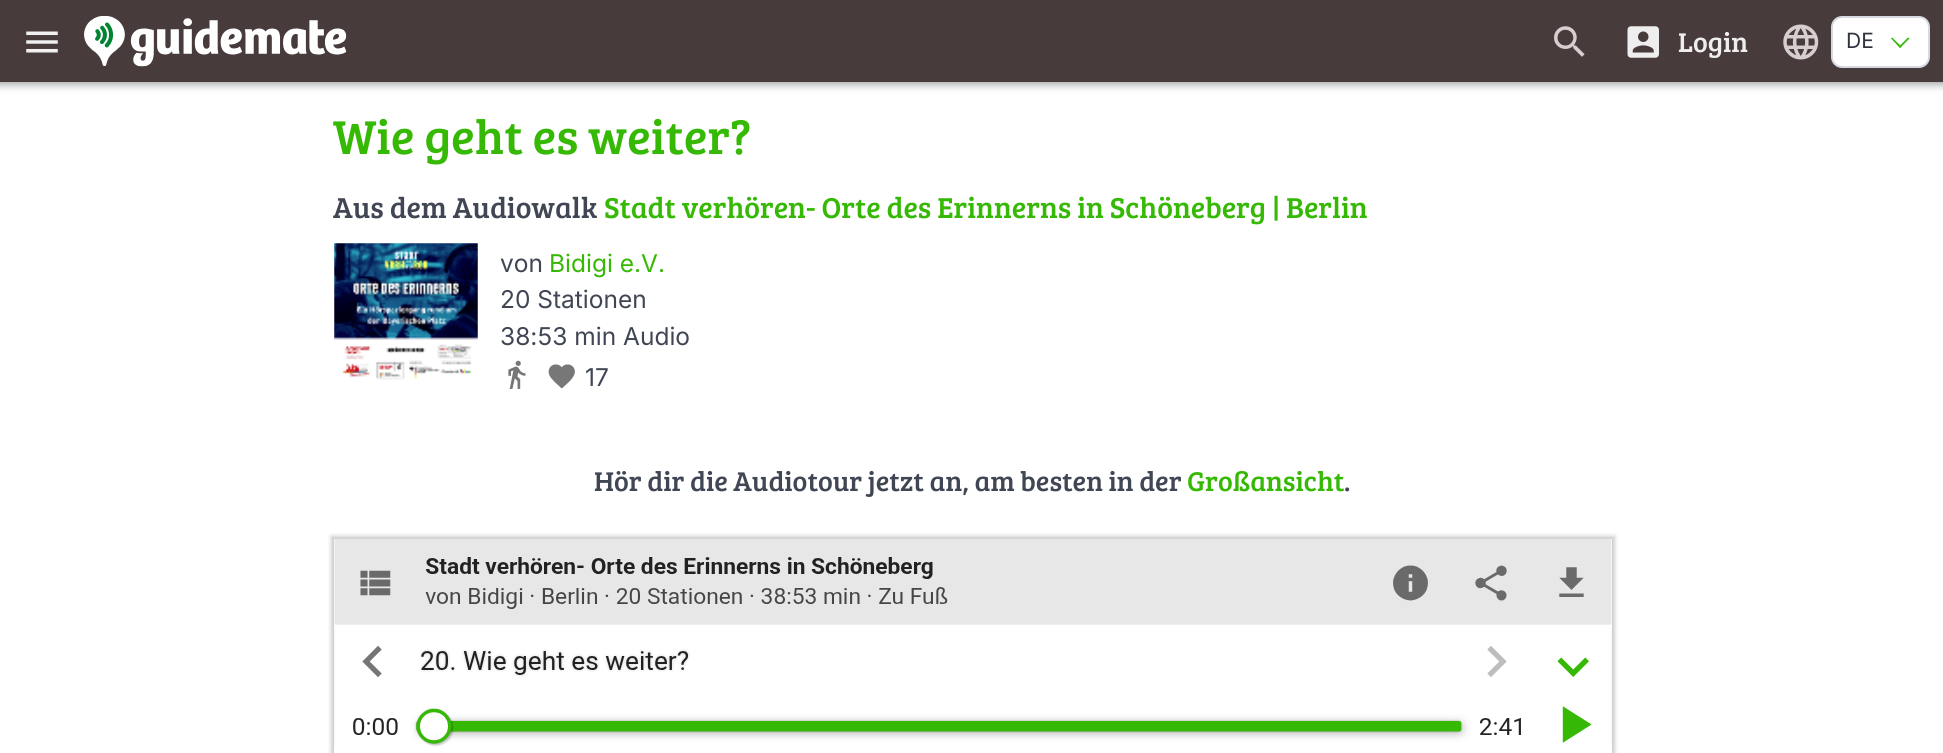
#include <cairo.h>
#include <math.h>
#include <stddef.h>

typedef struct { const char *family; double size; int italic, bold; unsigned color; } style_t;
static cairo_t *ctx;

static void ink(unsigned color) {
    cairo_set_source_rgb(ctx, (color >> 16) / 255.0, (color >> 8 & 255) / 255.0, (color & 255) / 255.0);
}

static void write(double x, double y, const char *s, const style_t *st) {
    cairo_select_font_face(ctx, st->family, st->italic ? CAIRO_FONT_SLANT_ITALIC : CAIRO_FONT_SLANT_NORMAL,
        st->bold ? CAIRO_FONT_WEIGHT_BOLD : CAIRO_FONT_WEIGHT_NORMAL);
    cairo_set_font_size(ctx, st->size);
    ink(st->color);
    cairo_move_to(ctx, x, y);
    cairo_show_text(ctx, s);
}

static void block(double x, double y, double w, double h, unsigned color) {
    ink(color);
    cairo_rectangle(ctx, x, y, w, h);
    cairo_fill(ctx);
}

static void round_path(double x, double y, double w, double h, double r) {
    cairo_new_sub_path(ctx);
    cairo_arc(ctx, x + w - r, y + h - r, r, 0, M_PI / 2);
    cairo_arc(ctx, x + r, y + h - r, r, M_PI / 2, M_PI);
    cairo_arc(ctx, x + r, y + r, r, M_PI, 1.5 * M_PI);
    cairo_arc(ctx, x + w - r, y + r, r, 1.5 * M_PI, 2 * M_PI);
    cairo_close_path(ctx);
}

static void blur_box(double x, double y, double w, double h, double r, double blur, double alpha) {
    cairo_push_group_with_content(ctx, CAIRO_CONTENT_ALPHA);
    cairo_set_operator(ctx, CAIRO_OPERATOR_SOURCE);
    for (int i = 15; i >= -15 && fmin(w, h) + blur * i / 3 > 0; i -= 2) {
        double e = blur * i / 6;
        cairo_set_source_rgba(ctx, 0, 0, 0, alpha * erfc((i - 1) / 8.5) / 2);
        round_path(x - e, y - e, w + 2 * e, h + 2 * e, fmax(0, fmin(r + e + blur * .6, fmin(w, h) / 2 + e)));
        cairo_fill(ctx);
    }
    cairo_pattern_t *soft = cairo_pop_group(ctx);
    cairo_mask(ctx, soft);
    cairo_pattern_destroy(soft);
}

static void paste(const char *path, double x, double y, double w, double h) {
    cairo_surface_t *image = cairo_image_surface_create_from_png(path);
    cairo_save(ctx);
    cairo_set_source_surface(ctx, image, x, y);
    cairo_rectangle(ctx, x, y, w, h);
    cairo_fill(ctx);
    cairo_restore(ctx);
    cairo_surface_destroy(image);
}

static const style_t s1 = {"Bree Serif", 28, 0, 0, 0xeeeeee};
static const style_t s2 = {"Inter", 21, 0, 0, 0x2e333d};
static const style_t s3 = {"Bree Serif", 49, 0, 0, 0x36b905};
static const style_t s4 = {"Bree Serif", 29.75, 0, 0, 0x404654};
static const style_t s5 = {"Bree Serif", 29.75, 0, 0, 0x36b905};
static const style_t s6 = {"Inter", 24.5, 0, 0, 0x404654};
static const style_t s7 = {"Inter", 24.5, 0, 0, 0x36b905};
static const style_t s8 = {"Bree Serif", 28, 0, 0, 0x404654};
static const style_t s9 = {"Bree Serif", 28, 0, 0, 0x36b905};

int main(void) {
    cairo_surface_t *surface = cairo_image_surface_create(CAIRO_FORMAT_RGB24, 1943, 753);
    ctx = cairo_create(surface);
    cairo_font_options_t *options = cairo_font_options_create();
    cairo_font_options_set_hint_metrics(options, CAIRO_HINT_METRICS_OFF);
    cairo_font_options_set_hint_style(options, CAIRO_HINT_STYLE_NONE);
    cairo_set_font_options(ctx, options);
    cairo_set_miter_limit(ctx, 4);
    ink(0xffffff);
    cairo_paint(ctx);
    ink(0x000000);
    blur_box(-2, -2, 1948, 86, 0, 4.5, 0.4);
    block(0, 0, 1943, 82, 0x473b3c);
    paste("pic1.png", 26, 31, 32, 22);
    paste("pic2.png", 84, 16, 263, 51);
    paste("pic3.png", 1554, 26, 31, 31);
    paste("pic4.png", 1627, 26, 32, 32);
    write(1678, 52, "Login", &s1);
    paste("pic5.png", 1783, 24, 36, 36);
    ink(0xffffff);
    round_path(1832, 17, 97, 50, 10);
    cairo_fill_preserve(ctx);
    ink(0xd6d9e0);
    cairo_stroke(ctx);
    write(1846, 48, "DE", &s2);
    ink(0x36b905);
    cairo_new_path(ctx);
    cairo_move_to(ctx, 1899, 46.5);
    cairo_line_to(ctx, 1908, 37.5);
    cairo_line_to(ctx, 1909.5, 38.5);
    cairo_line_to(ctx, 1900, 48);
    cairo_close_path(ctx);
    cairo_fill(ctx);
    cairo_new_path(ctx);
    cairo_move_to(ctx, 1891, 38.5);
    cairo_line_to(ctx, 1892, 37.5);
    cairo_line_to(ctx, 1901.5, 46.5);
    cairo_line_to(ctx, 1900, 48);
    cairo_close_path(ctx);
    cairo_fill(ctx);
    write(333, 154, "Wie geht es weiter?", &s3);
    write(333, 218, "Aus dem Audiowalk", &s4);
    write(604, 218, "Stadt verhören- Orte des Erinnerns in Schöneberg | Berlin", &s5);
    paste("pic6.png", 334, 243, 144, 137);
    write(500, 272, "von", &s6);
    write(549, 272, "Bidigi e.V.", &s7);
    write(500, 308, "20 Stationen", &s6);
    write(500, 345, "38:53 min Audio", &s6);
    paste("pic7.png", 508, 360, 18, 29);
    paste("pic8.png", 548, 364, 27, 25);
    write(585, 386, "17", &s6);
    write(594, 491, "Hör dir die Audiotour jetzt an, am besten in der", &s8);
    write(1187, 491, "Großansicht", &s9);
    write(1344, 491, ".", &s8);
    cairo_save(ctx);
    cairo_set_fill_rule(ctx, CAIRO_FILL_RULE_EVEN_ODD);
    cairo_new_path(ctx);
    cairo_move_to(ctx, 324, 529);
    cairo_line_to(ctx, 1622, 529);
    cairo_line_to(ctx, 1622, 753);
    cairo_line_to(ctx, 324, 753);
    cairo_close_path(ctx);
    cairo_move_to(ctx, 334, 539);
    cairo_line_to(ctx, 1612, 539);
    cairo_line_to(ctx, 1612, 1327);
    cairo_line_to(ctx, 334, 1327);
    cairo_close_path(ctx);
    cairo_clip(ctx);
    ink(0x000000);
    blur_box(331, 536, 1284, 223, 0, 2, 0.2);
    cairo_restore(ctx);
    paste("pic9.png", 334, 539, 1278, 208);
    cairo_surface_write_to_png(surface, "screenshot.png");
    cairo_font_options_destroy(options);
    cairo_destroy(ctx);
    cairo_surface_destroy(surface);
    return 0;
}
